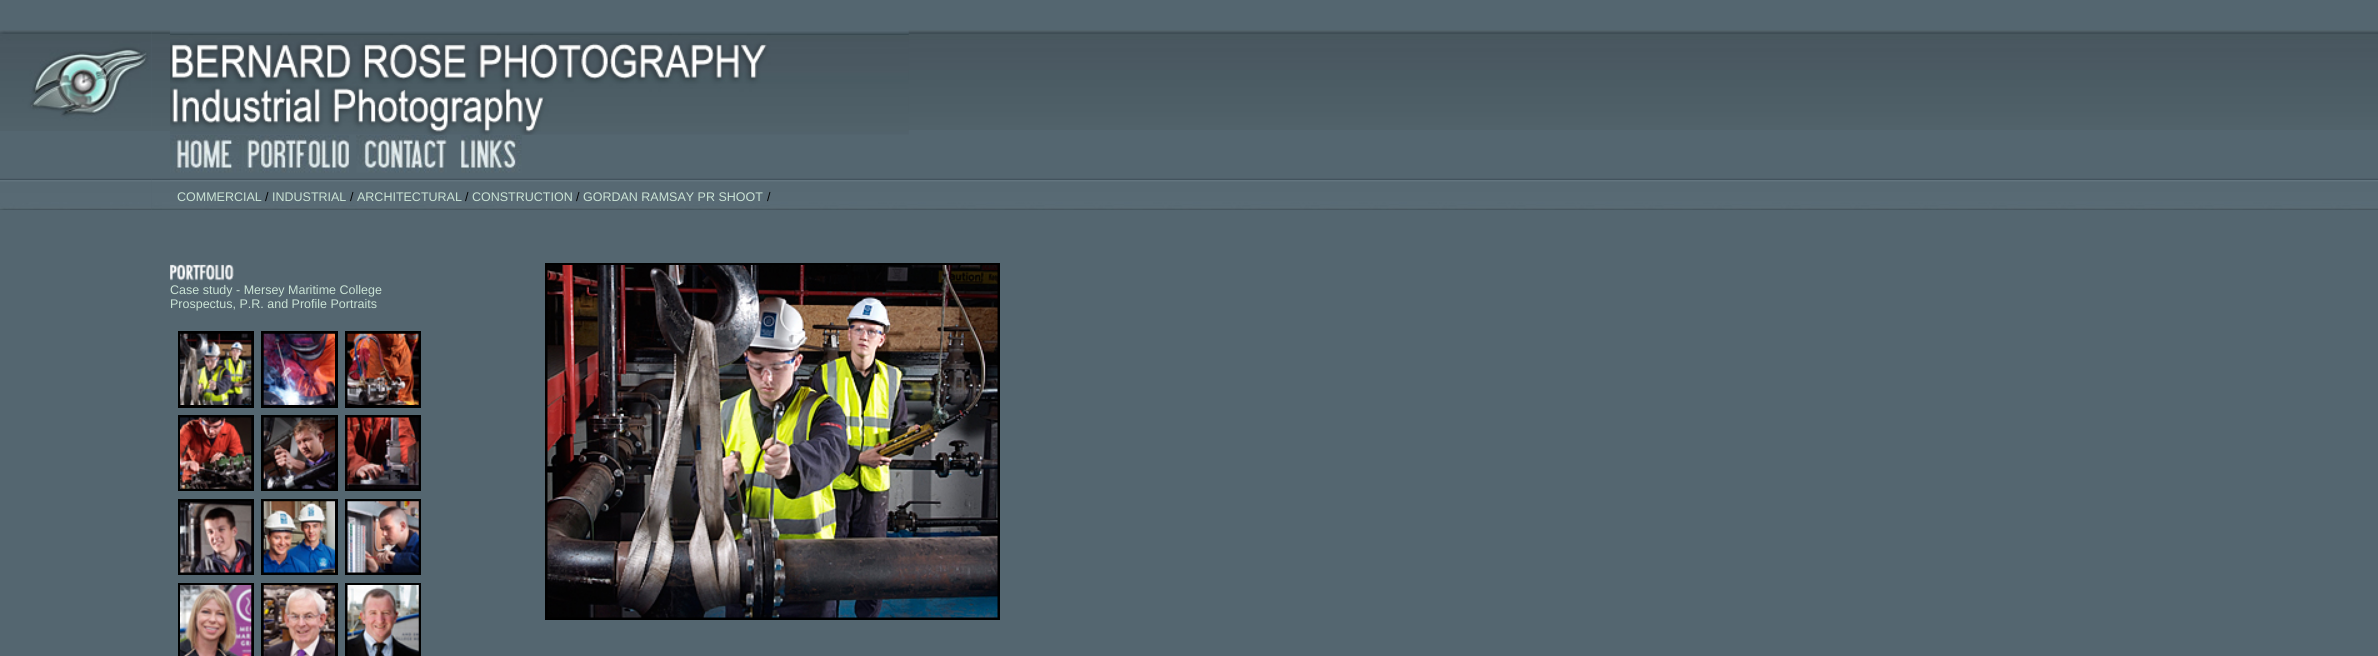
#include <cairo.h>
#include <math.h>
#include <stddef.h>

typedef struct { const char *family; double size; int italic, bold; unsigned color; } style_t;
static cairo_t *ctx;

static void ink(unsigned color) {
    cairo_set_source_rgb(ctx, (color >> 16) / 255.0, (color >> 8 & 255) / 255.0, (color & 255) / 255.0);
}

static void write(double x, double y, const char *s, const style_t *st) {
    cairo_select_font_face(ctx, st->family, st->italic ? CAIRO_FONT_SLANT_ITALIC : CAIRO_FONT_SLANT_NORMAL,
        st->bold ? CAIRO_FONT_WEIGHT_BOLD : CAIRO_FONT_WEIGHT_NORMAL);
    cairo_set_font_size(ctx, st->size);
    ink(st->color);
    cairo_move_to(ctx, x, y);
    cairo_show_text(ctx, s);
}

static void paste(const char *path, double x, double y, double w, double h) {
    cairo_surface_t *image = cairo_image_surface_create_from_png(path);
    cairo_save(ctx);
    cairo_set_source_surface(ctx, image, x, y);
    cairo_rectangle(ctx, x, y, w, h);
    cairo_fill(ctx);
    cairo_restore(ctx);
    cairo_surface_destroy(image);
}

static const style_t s1 = {"Liberation Sans", 12.5, 0, 0, 0xcae3d5};
static const style_t s2 = {"Liberation Sans", 12.5, 0, 0, 0x000000};

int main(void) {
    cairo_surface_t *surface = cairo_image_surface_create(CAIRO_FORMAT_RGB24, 2378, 656);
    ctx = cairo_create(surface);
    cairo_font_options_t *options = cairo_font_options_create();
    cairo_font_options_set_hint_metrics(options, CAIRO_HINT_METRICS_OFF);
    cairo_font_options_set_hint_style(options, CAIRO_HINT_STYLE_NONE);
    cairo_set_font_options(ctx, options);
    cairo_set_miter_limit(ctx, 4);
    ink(0x546670);
    cairo_paint(ctx);
    paste("pic1.png", 0, 30, 152, 101);
    paste("pic2.png", 151, 30, 19, 101);
    paste("pic3.png", 908, 30, 1470, 100);
    paste("pic4.png", 170, 30, 739, 105);
    paste("pic5.png", 170, 135, 69, 38);
    paste("pic6.png", 239, 135, 110, 38);
    paste("pic7.png", 356, 135, 91, 38);
    paste("pic8.png", 461, 135, 61, 38);
    paste("pic9.png", 0, 178, 152, 32);
    paste("pic10.png", 151, 178, 19, 32);
    paste("pic11.png", 170, 178, 2208, 32);
    write(177, 201, "COMMERCIAL", &s1);
    write(265, 201, "/", &s2);
    write(272, 201, "INDUSTRIAL", &s1);
    write(350, 201, "/", &s2);
    write(357, 201, "ARCHITECTURAL", &s1);
    write(465, 201, "/", &s2);
    write(472, 201, "CONSTRUCTION", &s1);
    write(576, 201, "/", &s2);
    write(583, 201, "GORDAN RAMSAY PR SHOOT", &s1);
    write(767, 201, "/", &s2);
    paste("pic12.png", 170, 264, 64, 17);
    write(170, 294, "Case study - Mersey Maritime College", &s1);
    write(170, 308, "Prospectus, P.R. and Profile Portraits", &s1);
    cairo_rectangle(ctx, 179.5, 332.5, 73, 74);
    ink(0x000000);
    cairo_set_line_width(ctx, 3);
    cairo_stroke(ctx);
    paste("pic13.png", 180, 333, 72, 72);
    cairo_rectangle(ctx, 262.5, 332.5, 74, 74);
    cairo_stroke(ctx);
    paste("pic14.png", 263, 333, 72, 72);
    cairo_rectangle(ctx, 346.5, 332.5, 73, 74);
    cairo_stroke(ctx);
    paste("pic15.png", 347, 333, 72, 72);
    cairo_rectangle(ctx, 179.5, 416.5, 73, 73);
    cairo_stroke(ctx);
    paste("pic16.png", 180, 417, 72, 72);
    cairo_rectangle(ctx, 262.5, 416.5, 74, 73);
    cairo_stroke(ctx);
    paste("pic17.png", 263, 417, 72, 72);
    cairo_rectangle(ctx, 346.5, 416.5, 73, 73);
    cairo_stroke(ctx);
    paste("pic18.png", 347, 417, 72, 72);
    cairo_rectangle(ctx, 179.5, 500.5, 73, 73);
    cairo_stroke(ctx);
    paste("pic19.png", 180, 501, 72, 72);
    cairo_rectangle(ctx, 262.5, 500.5, 74, 73);
    cairo_stroke(ctx);
    paste("pic20.png", 263, 501, 72, 72);
    cairo_rectangle(ctx, 346.5, 500.5, 73, 73);
    cairo_stroke(ctx);
    paste("pic21.png", 347, 501, 72, 72);
    cairo_rectangle(ctx, 179.5, 584.5, 73, 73);
    cairo_stroke(ctx);
    paste("pic22.png", 180, 585, 72, 71);
    cairo_rectangle(ctx, 262.5, 584.5, 74, 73);
    cairo_stroke(ctx);
    paste("pic23.png", 263, 585, 72, 71);
    cairo_rectangle(ctx, 346.5, 584.5, 73, 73);
    cairo_stroke(ctx);
    paste("pic24.png", 347, 585, 72, 71);
    cairo_rectangle(ctx, 546.5, 264.5, 452, 354);
    cairo_stroke(ctx);
    paste("pic25.png", 547, 265, 451, 353);
    cairo_surface_write_to_png(surface, "screenshot.png");
    cairo_font_options_destroy(options);
    cairo_destroy(ctx);
    cairo_surface_destroy(surface);
    return 0;
}
